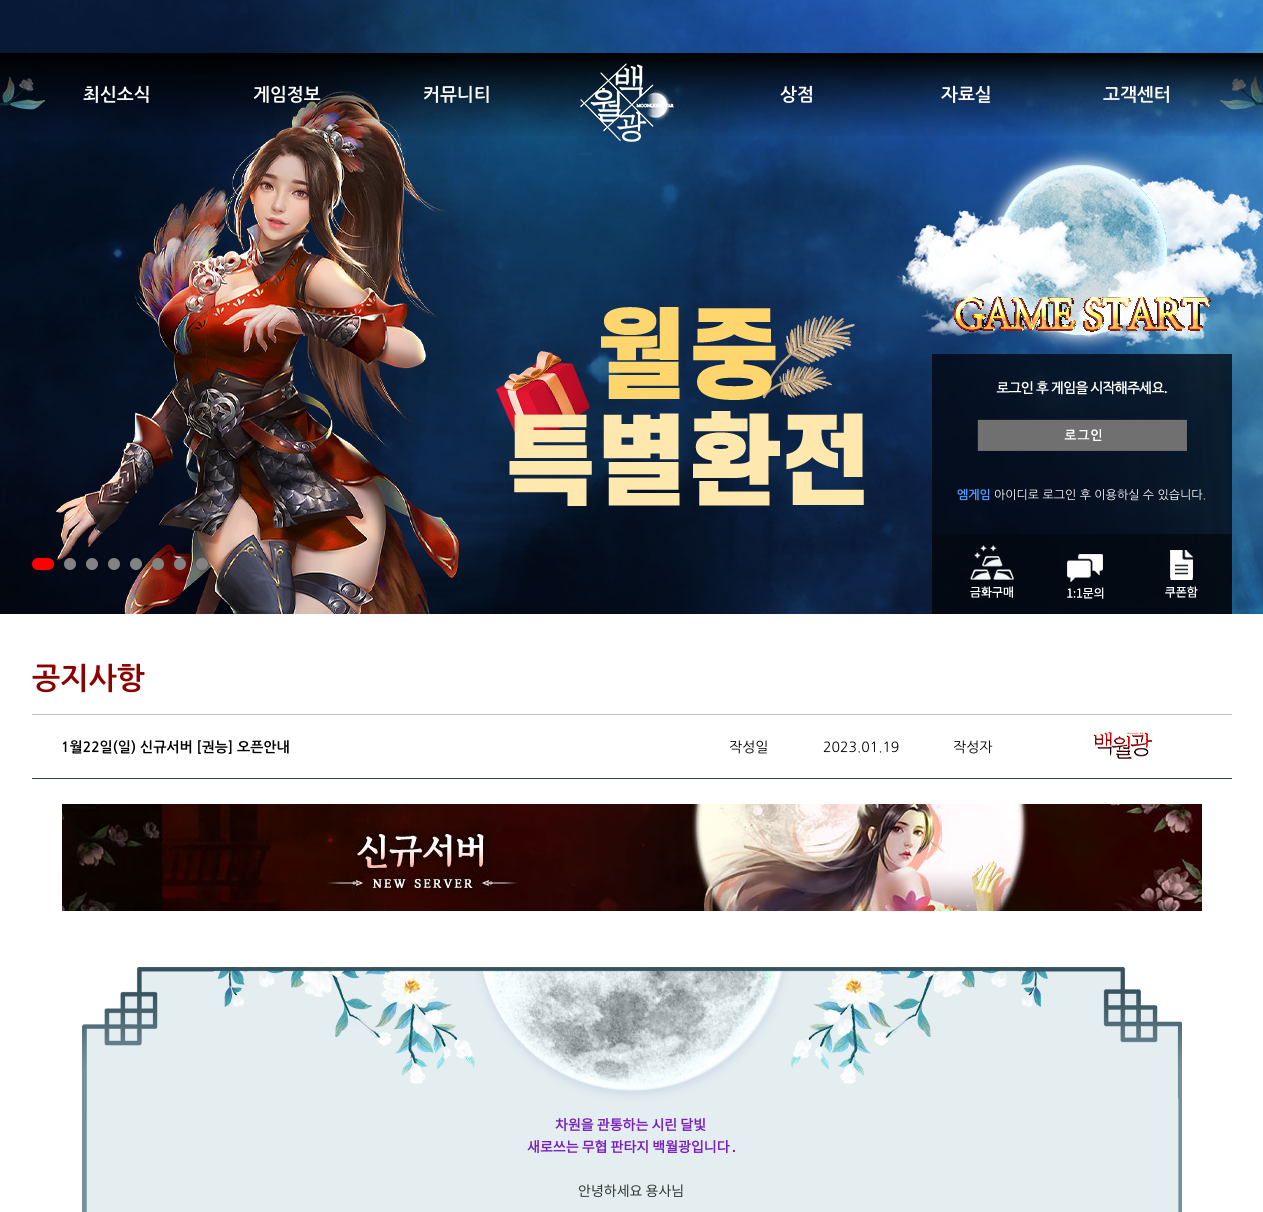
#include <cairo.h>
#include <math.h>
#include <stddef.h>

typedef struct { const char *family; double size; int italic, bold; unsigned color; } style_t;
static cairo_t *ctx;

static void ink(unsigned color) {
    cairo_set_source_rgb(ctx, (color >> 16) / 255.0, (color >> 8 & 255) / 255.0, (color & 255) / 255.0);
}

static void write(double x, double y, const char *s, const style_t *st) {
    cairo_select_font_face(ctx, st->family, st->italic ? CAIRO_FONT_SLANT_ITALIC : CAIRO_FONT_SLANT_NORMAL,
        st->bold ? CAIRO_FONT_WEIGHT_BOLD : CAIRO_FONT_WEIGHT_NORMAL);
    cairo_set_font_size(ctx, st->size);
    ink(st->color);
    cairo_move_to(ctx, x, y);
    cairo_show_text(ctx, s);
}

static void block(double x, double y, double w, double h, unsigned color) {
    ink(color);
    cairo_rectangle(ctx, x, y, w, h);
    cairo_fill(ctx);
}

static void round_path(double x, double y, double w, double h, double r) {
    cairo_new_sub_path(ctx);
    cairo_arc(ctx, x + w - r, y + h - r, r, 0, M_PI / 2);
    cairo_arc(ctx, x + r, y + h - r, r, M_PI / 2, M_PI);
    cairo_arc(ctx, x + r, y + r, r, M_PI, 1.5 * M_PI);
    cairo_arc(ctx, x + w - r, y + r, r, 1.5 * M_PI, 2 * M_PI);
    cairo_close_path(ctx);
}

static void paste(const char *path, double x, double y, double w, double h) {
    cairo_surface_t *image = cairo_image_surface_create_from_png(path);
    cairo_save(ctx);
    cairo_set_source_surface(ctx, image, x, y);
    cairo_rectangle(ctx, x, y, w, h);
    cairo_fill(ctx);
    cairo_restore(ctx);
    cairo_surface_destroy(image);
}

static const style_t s1 = {"NanumGothic", 18, 0, 1, 0xffffff};
static const style_t s2 = {"NanumGothic", 12, 0, 1, 0x5398ff};
static const style_t s3 = {"NanumGothic", 12, 0, 0, 0xffffff};
static const style_t s4 = {"NanumGothic", 30, 0, 1, 0x8c0000};
static const style_t s5 = {"NanumGothic", 14, 0, 1, 0x000000};
static const style_t s6 = {"NanumGothic", 14, 0, 0, 0x000000};
static const style_t s7 = {"Noto Sans CJK SC", 14, 0, 1, 0x7820b9};
static const style_t s8 = {"Liberation Sans", 14, 0, 1, 0x7820b9};
static const style_t s9 = {"Noto Sans CJK SC", 14, 0, 0, 0x363636};

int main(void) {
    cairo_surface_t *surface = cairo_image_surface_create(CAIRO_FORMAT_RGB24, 1263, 1212);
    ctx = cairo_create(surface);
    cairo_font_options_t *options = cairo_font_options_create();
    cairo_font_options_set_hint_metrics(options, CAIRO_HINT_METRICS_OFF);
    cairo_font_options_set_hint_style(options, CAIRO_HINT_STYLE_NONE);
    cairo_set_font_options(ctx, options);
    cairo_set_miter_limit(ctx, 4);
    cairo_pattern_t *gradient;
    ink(0xffffff);
    cairo_paint(ctx);
    paste("pic2.png", 0, 0, 1263, 614);
    paste("pic3.png", 56, 91, 808, 523);
    gradient = cairo_pattern_create_linear(632, 53, 632, 138);
    cairo_pattern_add_color_stop_rgba(gradient, 0, 0, 0, 0, 1);
    cairo_pattern_add_color_stop_rgba(gradient, 1, 0, 0, 0, 0);
    cairo_set_source(ctx, gradient);
    cairo_pattern_destroy(gradient);
    cairo_rectangle(ctx, 0, 53, 1263, 83);
    cairo_fill(ctx);
    write(83, 101, "최신소식", &s1);
    write(253, 101, "게임정보", &s1);
    write(423, 101, "커뮤니티", &s1);
    paste("pic1.png", 579, 63, 95, 92);
    write(780, 101, "상점", &s1);
    write(941, 101, "자료실", &s1);
    write(1103, 101, "고객센터", &s1);
    ink(0xff0000);
    round_path(32, 558, 22, 12, 6);
    cairo_fill(ctx);
    ink(0x838383);
    cairo_arc(ctx, 70, 564, 6, 0, 2 * M_PI);
    cairo_fill(ctx);
    cairo_arc(ctx, 92, 564, 6, 0, 2 * M_PI);
    cairo_fill(ctx);
    cairo_arc(ctx, 114, 564, 6, 0, 2 * M_PI);
    cairo_fill(ctx);
    cairo_arc(ctx, 136, 564, 6, 0, 2 * M_PI);
    cairo_fill(ctx);
    cairo_arc(ctx, 158, 564, 6, 0, 2 * M_PI);
    cairo_fill(ctx);
    cairo_arc(ctx, 180, 564, 6, 0, 2 * M_PI);
    cairo_fill(ctx);
    cairo_arc(ctx, 202, 564, 6, 0, 2 * M_PI);
    cairo_fill(ctx);
    paste("pic6.png", 1130, 176, 133, 78);
    paste("pic9.png", 921, 270, 262, 75);
    paste("pic4.png", 983, 149, 200, 202);
    paste("pic5.png", 997, 165, 170, 170);
    paste("pic7.png", 895, 210, 197, 108);
    paste("pic8.png", 1075, 238, 188, 109);
    paste("pic10.png", 954, 296, 257, 36);
    paste("pic11.png", 932, 354, 300, 260);
    paste("pic12.png", 996, 381, 171, 14);
    paste("pic13.png", 977, 419, 210, 32);
    write(957, 499, "엠게임", &s2);
    write(994, 499, "아이디로 로그인 후 이용하실 수 있습니다.", &s3);
    paste("pic14.png", 970, 545, 44, 53);
    paste("pic15.png", 1067, 554, 37, 45);
    paste("pic16.png", 1165, 550, 33, 48);
    block(32, 714, 1200, 1, 0xbfbfbf);
    write(32, 689, "공지사항", &s4);
    block(32, 778, 1200, 1, 0x3a434e);
    paste("pic17.png", 1093, 731, 60, 28);
    write(61, 752, "1월22일(일) 신규서버 [권능] 오픈안내", &s5);
    write(729, 752, "작성일", &s6);
    write(823, 752, "2023.01.19", &s6);
    write(953, 752, "작성자", &s6);
    paste("pic18.png", 62, 804, 1140, 107);
    paste("pic19.png", 82, 967, 1100, 150);
    paste("pic20.png", 82, 1117, 1100, 95);
    write(555, 1130, "차원을 관통하는 시린 달빛", &s7);
    write(527, 1152, "새로쓰는 무협 판타지 백월광입니다", &s7);
    write(732, 1152, ".", &s8);
    write(578, 1196, "안녕하세요 용사님", &s9);
    cairo_surface_write_to_png(surface, "screenshot.png");
    cairo_font_options_destroy(options);
    cairo_destroy(ctx);
    cairo_surface_destroy(surface);
    return 0;
}
